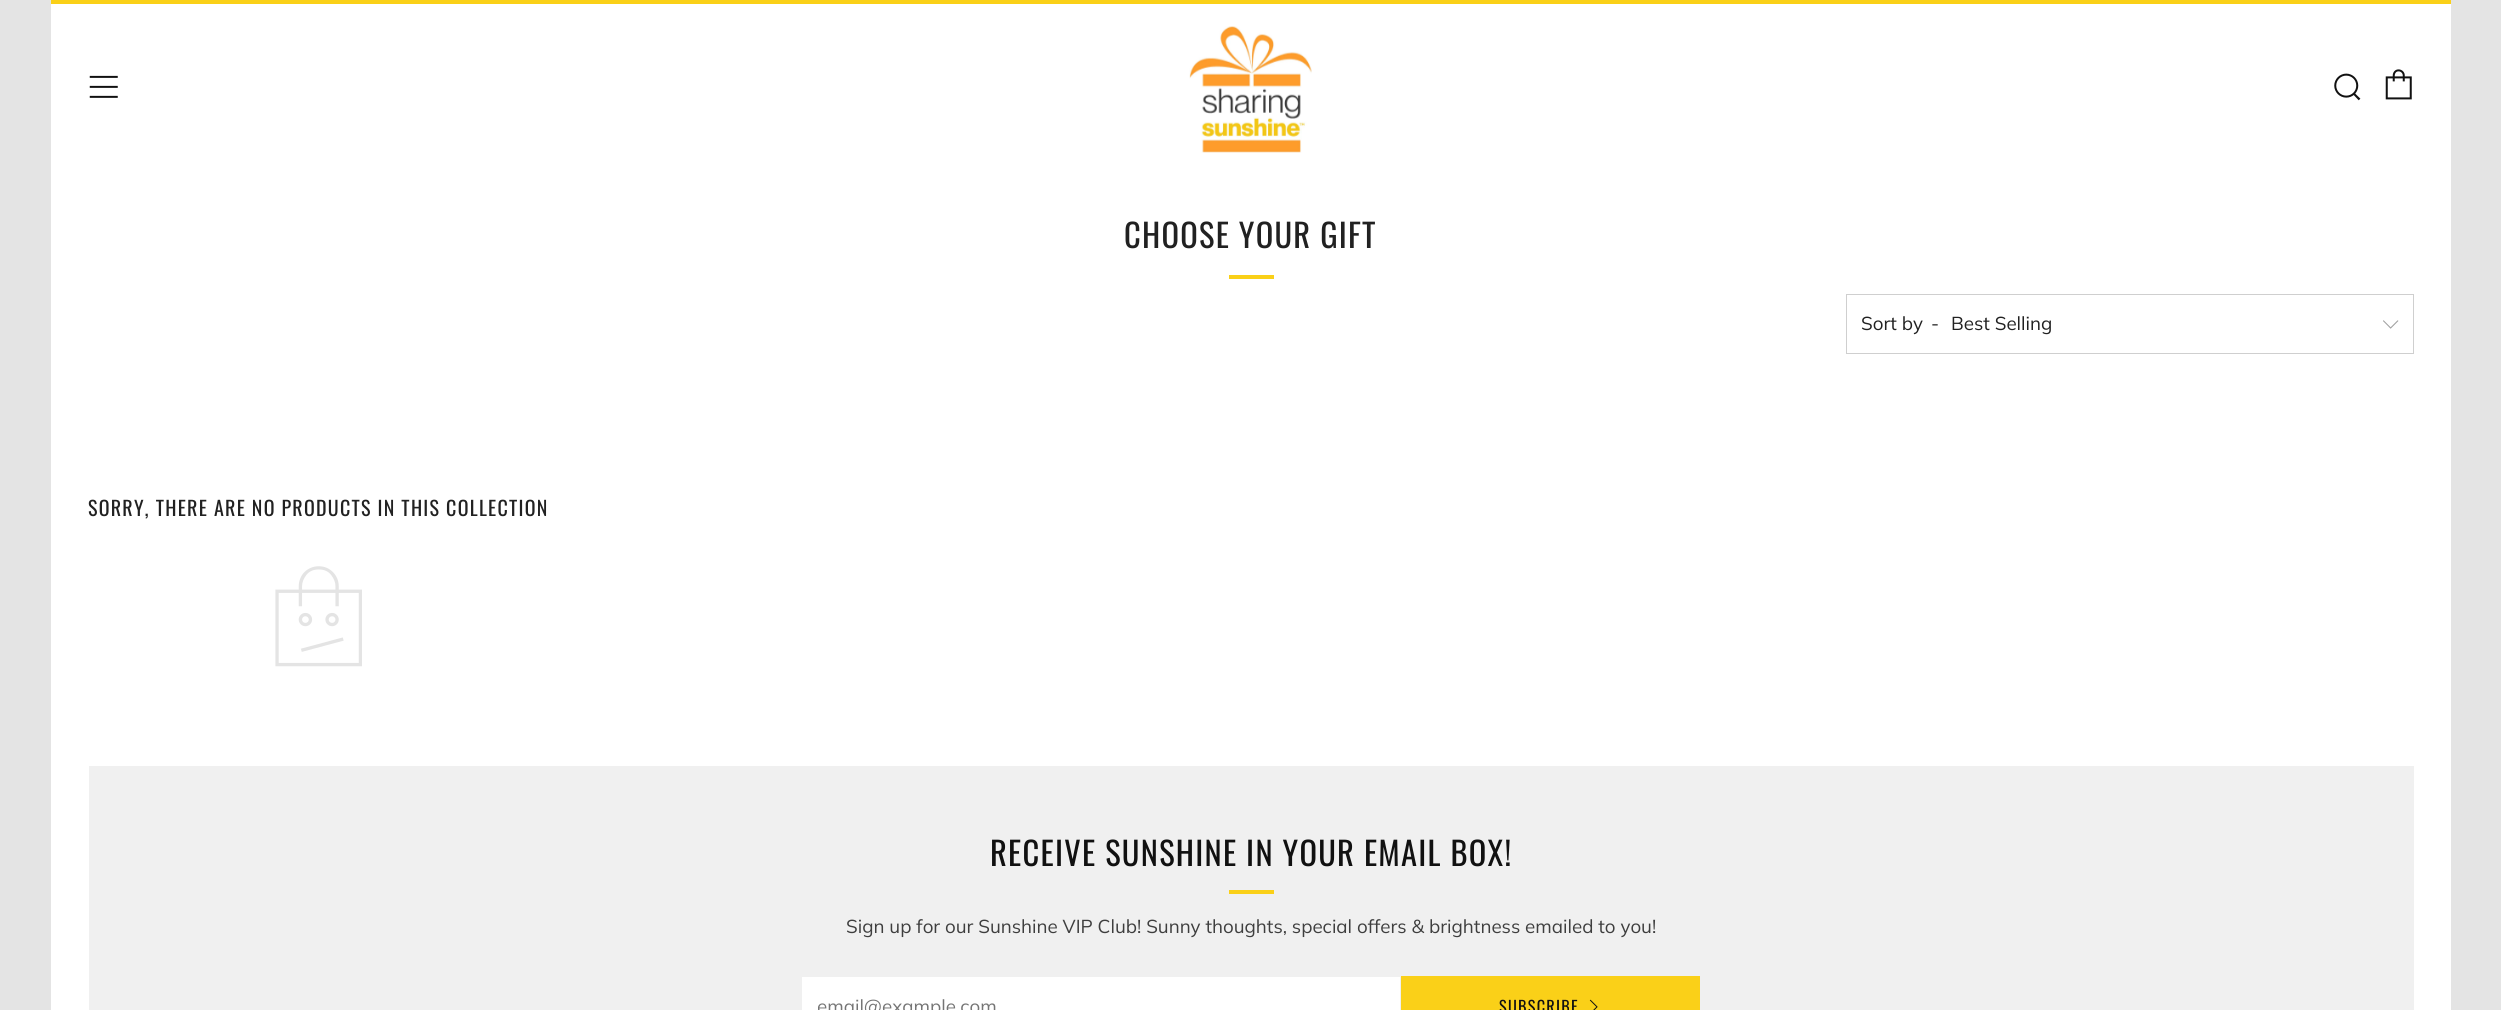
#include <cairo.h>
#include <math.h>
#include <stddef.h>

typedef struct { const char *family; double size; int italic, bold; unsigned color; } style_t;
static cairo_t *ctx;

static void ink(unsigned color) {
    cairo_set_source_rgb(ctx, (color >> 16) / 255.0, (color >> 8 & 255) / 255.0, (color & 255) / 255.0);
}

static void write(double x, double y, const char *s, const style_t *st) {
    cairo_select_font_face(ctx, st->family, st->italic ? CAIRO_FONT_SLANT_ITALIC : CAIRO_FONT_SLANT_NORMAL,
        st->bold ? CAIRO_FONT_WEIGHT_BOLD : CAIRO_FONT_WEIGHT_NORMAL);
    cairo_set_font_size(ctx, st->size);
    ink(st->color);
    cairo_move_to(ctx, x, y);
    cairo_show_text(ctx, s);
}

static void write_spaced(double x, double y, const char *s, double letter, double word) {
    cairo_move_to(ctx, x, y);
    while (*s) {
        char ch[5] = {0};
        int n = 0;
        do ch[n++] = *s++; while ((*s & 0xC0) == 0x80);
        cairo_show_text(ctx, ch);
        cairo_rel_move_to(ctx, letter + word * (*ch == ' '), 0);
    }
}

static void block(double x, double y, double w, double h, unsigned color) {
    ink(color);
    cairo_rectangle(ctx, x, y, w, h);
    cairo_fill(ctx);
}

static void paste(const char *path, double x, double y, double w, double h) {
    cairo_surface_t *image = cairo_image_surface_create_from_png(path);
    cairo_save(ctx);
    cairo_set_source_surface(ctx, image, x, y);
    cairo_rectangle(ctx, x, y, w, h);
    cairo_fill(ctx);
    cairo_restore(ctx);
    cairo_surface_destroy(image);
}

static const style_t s1 = {"Muli", 18.75, 0, 0, 0x212121};
static const style_t s2 = {"Muli", 18.75, 0, 0, 0x3e3e3e};
static const style_t s3 = {"Muli", 18.75, 0, 0, 0x757575};

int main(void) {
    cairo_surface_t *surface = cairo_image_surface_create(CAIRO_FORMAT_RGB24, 2501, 1010);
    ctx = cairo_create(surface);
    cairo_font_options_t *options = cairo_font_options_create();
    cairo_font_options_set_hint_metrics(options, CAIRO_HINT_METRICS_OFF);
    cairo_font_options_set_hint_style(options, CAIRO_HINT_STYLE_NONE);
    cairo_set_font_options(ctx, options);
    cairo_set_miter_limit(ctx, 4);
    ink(0xe4e4e4);
    cairo_paint(ctx);
    block(51, 4, 2400, 1006, 0xffffff);
    block(51, 0, 2400, 4, 0xfad018);
    paste("pic1.png", 89, 75, 29, 23);
    paste("pic2.png", 1189, 26, 123, 127);
    paste("pic3.png", 2334, 73, 27, 28);
    paste("pic4.png", 2385, 69, 27, 31);
    cairo_select_font_face(ctx, "Oswald", CAIRO_FONT_SLANT_NORMAL, CAIRO_FONT_WEIGHT_NORMAL);
    cairo_set_font_size(ctx, 32.5);
    ink(0x212121);
    write_spaced(1124, 248, "CHOOSE YOUR GIFT", 1.25, 0);
    block(1229, 275, 45, 4, 0xfad018);
    cairo_rectangle(ctx, 1846.5, 294.5, 567, 59);
    ink(0xcfcfcf);
    cairo_set_line_width(ctx, 1);
    cairo_stroke(ctx);
    write(1861, 330, "Sort by", &s1);
    write(1931, 330, "-", &s1);
    write(1951, 330, "Best Selling", &s1);
    paste("pic5.png", 2383, 320, 16, 9);
    cairo_select_font_face(ctx, "Oswald", CAIRO_FONT_SLANT_NORMAL, CAIRO_FONT_WEIGHT_NORMAL);
    cairo_set_font_size(ctx, 20);
    write_spaced(88, 516, "SORRY, THERE ARE NO PRODUCTS IN THIS COLLECTION", 1.25, 0);
    paste("pic6.png", 275, 566, 87, 101);
    block(89, 766, 2325, 244, 0xf0f0f0);
    cairo_set_font_size(ctx, 32.5);
    ink(0x111111);
    write_spaced(990, 866, "RECEIVE SUNSHINE IN YOUR EMAIL BOX!", 1.25, 0);
    block(1229, 890, 45, 4, 0xfad018);
    write(846, 933, "Sign up for our Sunshine VIP Club! Sunny thoughts, special offers & brightness emailed to you!", &s2);
    block(802, 977, 598, 33, 0xffffff);
    cairo_save(ctx);
    cairo_rectangle(ctx, 818, 994, 567, 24);
    cairo_clip(ctx);
    write(817, 1013, "email@example.com", &s3);
    cairo_restore(ctx);
    block(1401, 976, 299, 34, 0xfad018);
    cairo_select_font_face(ctx, "Oswald", CAIRO_FONT_SLANT_NORMAL, CAIRO_FONT_WEIGHT_NORMAL);
    cairo_set_font_size(ctx, 16.25);
    ink(0x111111);
    write_spaced(1499, 1013, "SUBSCRIBE", 1.25, 0);
    paste("pic7.png", 1589, 999, 9, 11);
    cairo_surface_write_to_png(surface, "screenshot.png");
    cairo_font_options_destroy(options);
    cairo_destroy(ctx);
    cairo_surface_destroy(surface);
    return 0;
}
